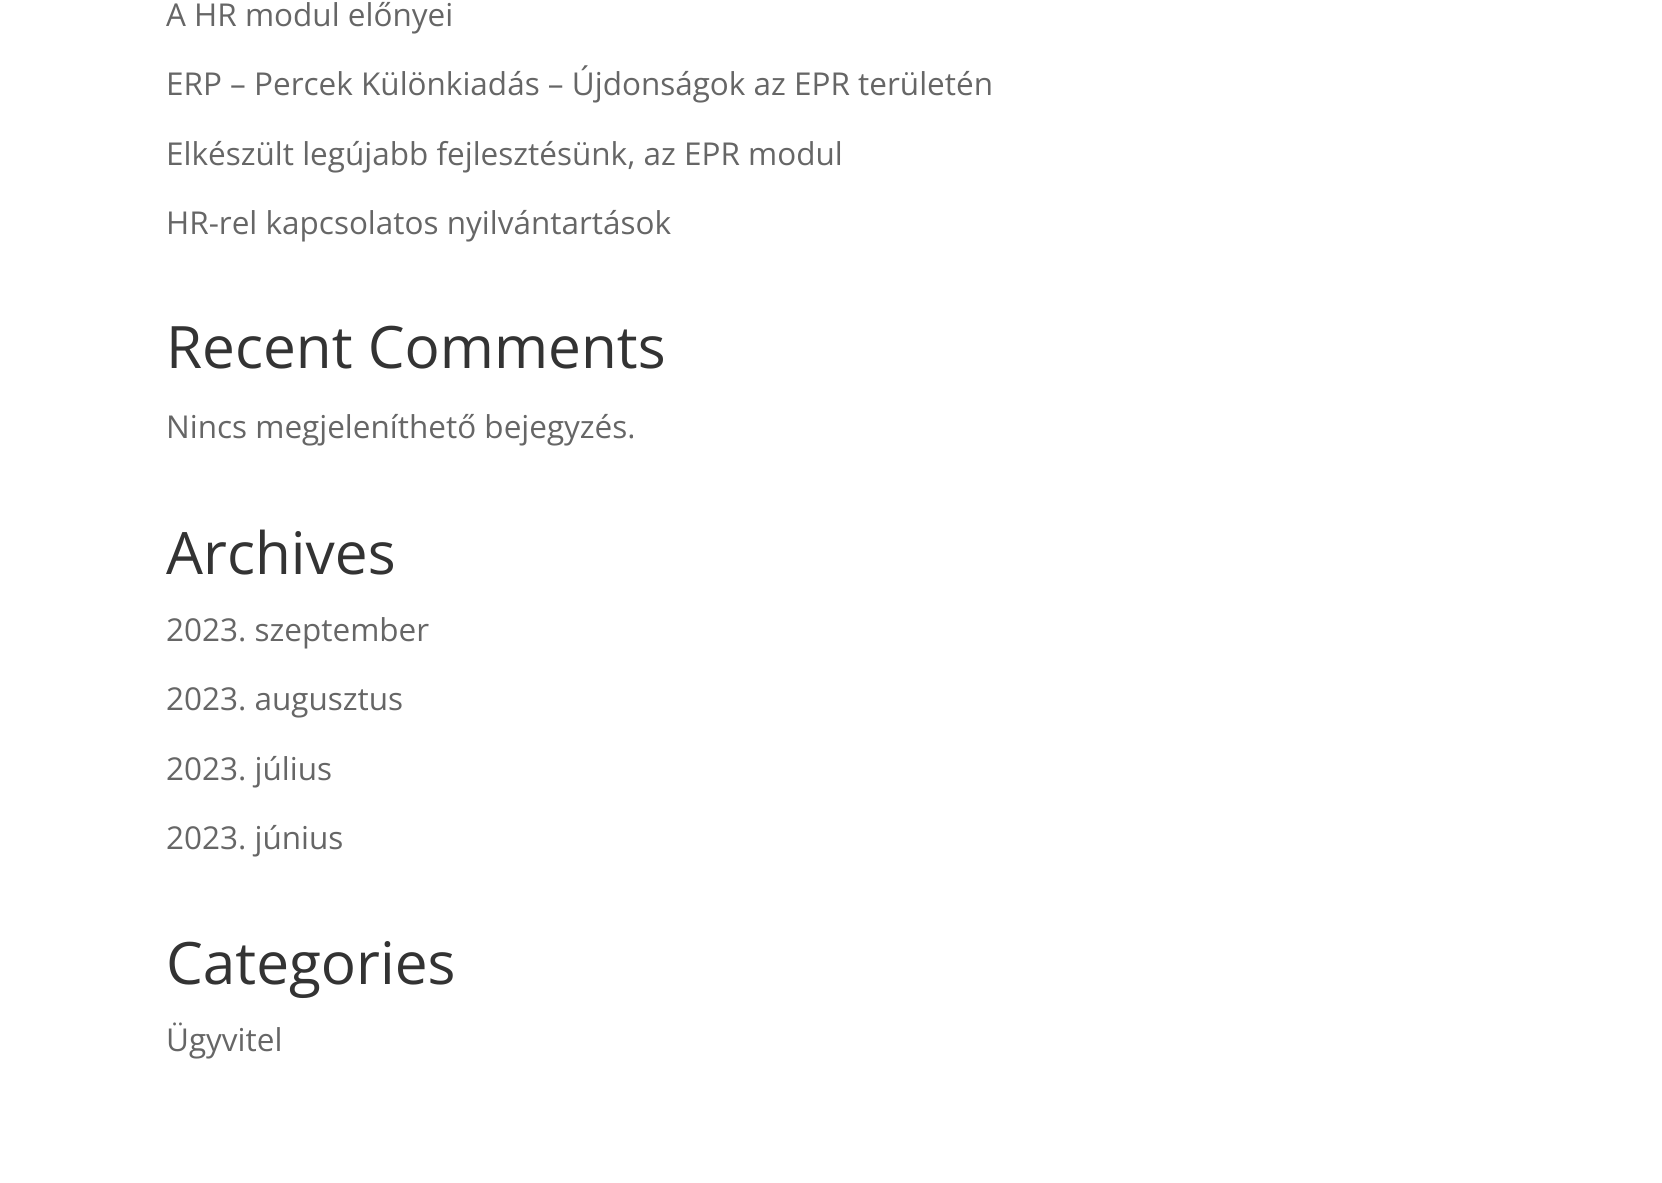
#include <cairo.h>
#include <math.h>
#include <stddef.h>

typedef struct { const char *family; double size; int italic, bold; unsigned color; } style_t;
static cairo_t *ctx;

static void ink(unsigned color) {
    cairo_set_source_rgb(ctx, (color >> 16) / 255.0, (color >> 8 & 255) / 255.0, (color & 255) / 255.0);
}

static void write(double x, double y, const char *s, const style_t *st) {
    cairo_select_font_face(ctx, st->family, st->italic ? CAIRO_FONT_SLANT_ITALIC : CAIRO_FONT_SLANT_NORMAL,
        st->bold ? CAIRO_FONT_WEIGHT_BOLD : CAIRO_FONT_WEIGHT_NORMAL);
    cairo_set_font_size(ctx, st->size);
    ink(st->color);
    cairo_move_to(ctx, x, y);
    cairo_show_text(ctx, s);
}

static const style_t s1 = {"Open Sans", 31.5, 0, 0, 0x666666};
static const style_t s2 = {"Open Sans", 58.5, 0, 0, 0x333333};

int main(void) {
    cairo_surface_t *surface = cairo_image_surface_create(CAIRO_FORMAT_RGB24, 1662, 1183);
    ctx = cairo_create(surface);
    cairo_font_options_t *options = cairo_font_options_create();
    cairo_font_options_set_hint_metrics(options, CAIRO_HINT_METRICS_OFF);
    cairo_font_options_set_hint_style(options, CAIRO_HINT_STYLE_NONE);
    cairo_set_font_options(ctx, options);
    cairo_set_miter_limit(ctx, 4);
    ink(0xffffff);
    cairo_paint(ctx);
    write(166, 26, "A HR modul előnyei", &s1);
    write(166, 95, "ERP – Percek Különkiadás – Újdonságok az EPR területén", &s1);
    write(166, 165, "Elkészült legújabb fejlesztésünk, az EPR modul", &s1);
    write(166, 234, "HR-rel kapcsolatos nyilvántartások", &s1);
    write(166, 368, "Recent Comments", &s2);
    write(166, 438, "Nincs megjeleníthető bejegyzés.", &s1);
    write(166, 574, "Archives", &s2);
    write(166, 641, "2023. szeptember", &s1);
    write(166, 710, "2023. augusztus", &s1);
    write(166, 780, "2023. július", &s1);
    write(166, 849, "2023. június", &s1);
    write(166, 984, "Categories", &s2);
    write(166, 1051, "Ügyvitel", &s1);
    cairo_surface_write_to_png(surface, "screenshot.png");
    cairo_font_options_destroy(options);
    cairo_destroy(ctx);
    cairo_surface_destroy(surface);
    return 0;
}
